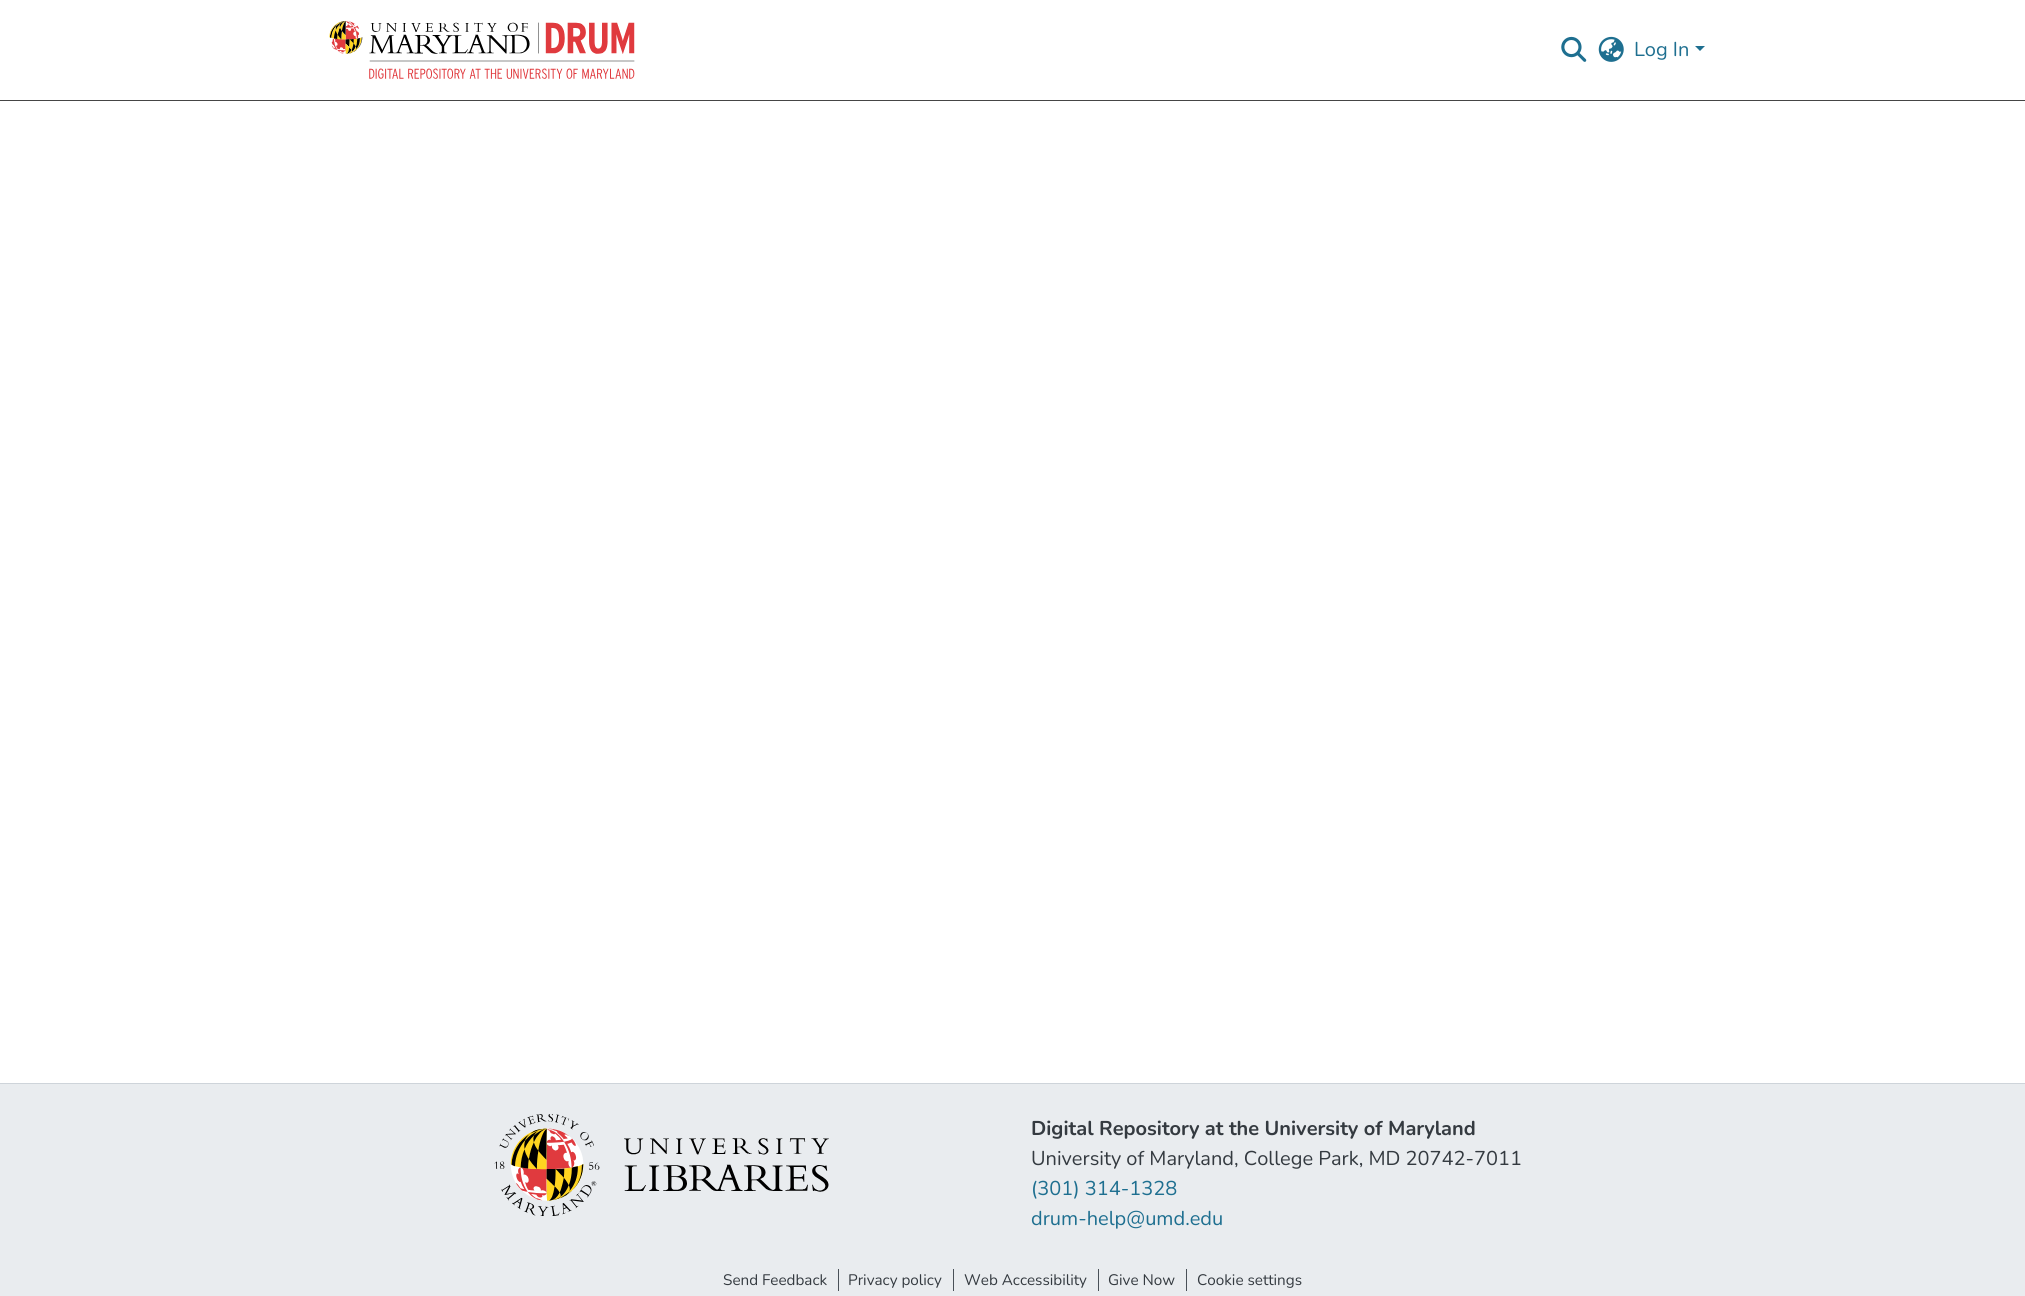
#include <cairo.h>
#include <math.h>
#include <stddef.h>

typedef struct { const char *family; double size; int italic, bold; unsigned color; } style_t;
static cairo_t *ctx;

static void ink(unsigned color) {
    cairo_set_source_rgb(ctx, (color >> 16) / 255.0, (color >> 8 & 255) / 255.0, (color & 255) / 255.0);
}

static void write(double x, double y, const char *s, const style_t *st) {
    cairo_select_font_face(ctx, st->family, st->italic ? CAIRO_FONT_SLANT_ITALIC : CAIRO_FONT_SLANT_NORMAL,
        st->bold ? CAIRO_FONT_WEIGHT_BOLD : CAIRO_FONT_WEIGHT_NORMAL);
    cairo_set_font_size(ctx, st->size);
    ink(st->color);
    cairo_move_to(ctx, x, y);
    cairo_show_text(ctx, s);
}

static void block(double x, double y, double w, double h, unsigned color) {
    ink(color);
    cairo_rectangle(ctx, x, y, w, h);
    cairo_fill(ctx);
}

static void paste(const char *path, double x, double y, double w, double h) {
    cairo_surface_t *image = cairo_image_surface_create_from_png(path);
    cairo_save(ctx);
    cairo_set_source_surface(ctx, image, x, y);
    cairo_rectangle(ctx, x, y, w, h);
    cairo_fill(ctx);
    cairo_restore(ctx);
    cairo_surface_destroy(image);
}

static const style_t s1 = {"Nunito", 20, 0, 0, 0x1e6f90};
static const style_t s2 = {"Nunito", 20, 0, 1, 0x343a40};
static const style_t s3 = {"Nunito", 20, 0, 0, 0x343a40};
static const style_t s4 = {"Nunito", 15.25, 0, 0, 0x343a40};

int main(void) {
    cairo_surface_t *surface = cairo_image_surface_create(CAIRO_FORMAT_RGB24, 2025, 1296);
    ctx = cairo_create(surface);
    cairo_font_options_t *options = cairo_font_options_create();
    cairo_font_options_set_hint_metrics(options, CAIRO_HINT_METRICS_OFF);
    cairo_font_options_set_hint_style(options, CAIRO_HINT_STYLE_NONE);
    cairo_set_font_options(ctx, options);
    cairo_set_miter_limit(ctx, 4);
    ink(0xffffff);
    cairo_paint(ctx);
    block(0, 100, 2025, 1, 0x454545);
    paste("pic1.png", 329, 20, 306, 59);
    paste("pic2.png", 1561, 36, 26, 26);
    paste("pic3.png", 1598, 36, 26, 26);
    write(1634, 56, "Log In", &s1);
    cairo_new_path(ctx);
    cairo_move_to(ctx, 1695, 46);
    cairo_line_to(ctx, 1705, 46);
    cairo_line_to(ctx, 1700, 51);
    cairo_close_path(ctx);
    cairo_fill(ctx);
    block(0, 1084, 2025, 212, 0xe9ecef);
    block(0, 1083, 2025, 1, 0xced4da);
    paste("pic4.png", 494, 1114, 335, 102);
    write(1031, 1135, "Digital Repository at the University of Maryland", &s2);
    write(1031, 1165, "University of Maryland, College Park, MD 20742-7011", &s3);
    write(1031, 1195, "(301) 314-1328", &s1);
    write(1031, 1225, "drum-help@umd.edu", &s1);
    write(723, 1285, "Send Feedback", &s4);
    block(838, 1269, 1, 22, 0x495057);
    write(848, 1285, "Privacy policy", &s4);
    block(953, 1269, 1, 22, 0x495057);
    write(964, 1285, "Web Accessibility", &s4);
    block(1098, 1269, 1, 22, 0x495057);
    write(1108, 1285, "Give Now", &s4);
    block(1186, 1269, 1, 22, 0x495057);
    write(1197, 1285, "Cookie settings", &s4);
    cairo_surface_write_to_png(surface, "screenshot.png");
    cairo_font_options_destroy(options);
    cairo_destroy(ctx);
    cairo_surface_destroy(surface);
    return 0;
}
